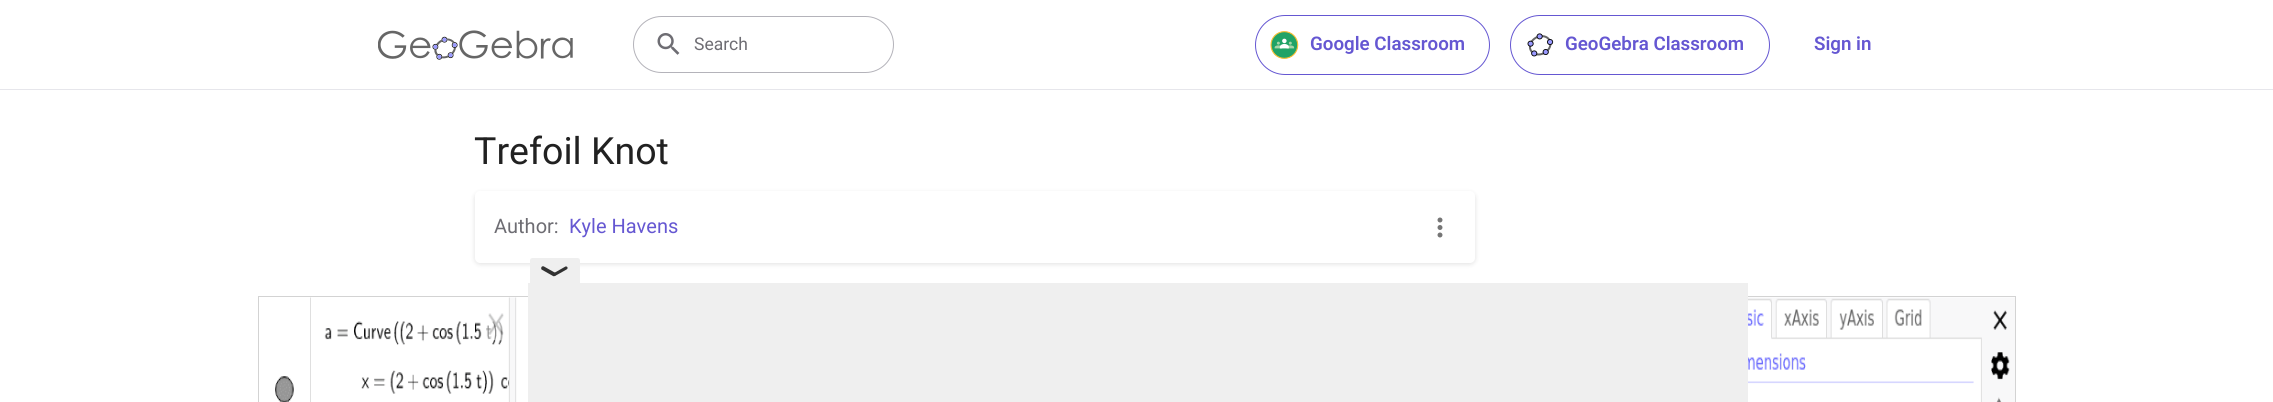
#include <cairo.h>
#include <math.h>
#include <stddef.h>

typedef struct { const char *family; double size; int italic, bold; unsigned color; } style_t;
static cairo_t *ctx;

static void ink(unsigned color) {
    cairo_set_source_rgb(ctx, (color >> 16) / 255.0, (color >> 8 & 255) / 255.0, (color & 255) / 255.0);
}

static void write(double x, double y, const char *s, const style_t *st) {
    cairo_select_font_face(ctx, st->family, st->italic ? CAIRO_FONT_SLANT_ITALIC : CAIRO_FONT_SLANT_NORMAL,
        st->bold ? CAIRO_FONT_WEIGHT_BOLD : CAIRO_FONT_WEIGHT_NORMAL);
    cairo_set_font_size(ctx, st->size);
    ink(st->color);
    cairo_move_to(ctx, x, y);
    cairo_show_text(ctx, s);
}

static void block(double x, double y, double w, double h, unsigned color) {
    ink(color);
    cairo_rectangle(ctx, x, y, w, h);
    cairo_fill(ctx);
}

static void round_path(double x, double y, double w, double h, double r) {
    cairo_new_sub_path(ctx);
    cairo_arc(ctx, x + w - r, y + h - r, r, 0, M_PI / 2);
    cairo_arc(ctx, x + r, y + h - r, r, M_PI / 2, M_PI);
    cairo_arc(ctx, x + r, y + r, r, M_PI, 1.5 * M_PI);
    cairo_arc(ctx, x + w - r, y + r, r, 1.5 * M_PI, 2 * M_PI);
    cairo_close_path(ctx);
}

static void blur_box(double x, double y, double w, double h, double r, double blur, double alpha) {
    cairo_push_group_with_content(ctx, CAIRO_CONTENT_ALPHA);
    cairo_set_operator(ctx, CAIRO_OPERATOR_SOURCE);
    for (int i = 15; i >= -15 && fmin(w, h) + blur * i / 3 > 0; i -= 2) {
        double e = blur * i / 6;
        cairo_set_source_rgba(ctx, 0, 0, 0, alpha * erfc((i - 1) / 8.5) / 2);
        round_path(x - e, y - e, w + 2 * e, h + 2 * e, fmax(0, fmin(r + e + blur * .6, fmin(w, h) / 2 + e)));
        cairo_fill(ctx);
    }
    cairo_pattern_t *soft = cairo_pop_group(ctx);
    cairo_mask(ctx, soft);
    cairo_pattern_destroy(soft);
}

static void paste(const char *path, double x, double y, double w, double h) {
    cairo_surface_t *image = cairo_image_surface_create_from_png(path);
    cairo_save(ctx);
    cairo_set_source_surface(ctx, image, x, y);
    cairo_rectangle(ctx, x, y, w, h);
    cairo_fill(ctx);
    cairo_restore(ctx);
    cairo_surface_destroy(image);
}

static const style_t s1 = {"Roboto", 17.5, 0, 0, 0x6e6d73};
static const style_t s2 = {"Roboto SemiBold", 18.75, 0, 0, 0x6557d2};
static const style_t s3 = {"Roboto", 37.5, 0, 0, 0x212121};
static const style_t s4 = {"Roboto", 20, 0, 0, 0x6e6d73};
static const style_t s5 = {"Roboto", 20, 0, 0, 0x6557d2};

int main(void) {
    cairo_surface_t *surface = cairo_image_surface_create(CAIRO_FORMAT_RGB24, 2273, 402);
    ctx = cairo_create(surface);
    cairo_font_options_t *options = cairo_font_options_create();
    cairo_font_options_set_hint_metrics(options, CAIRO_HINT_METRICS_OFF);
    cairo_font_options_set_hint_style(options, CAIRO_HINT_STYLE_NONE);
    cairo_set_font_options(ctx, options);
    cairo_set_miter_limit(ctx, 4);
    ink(0xffffff);
    cairo_paint(ctx);
    block(0, 89, 2273, 1, 0xe6e6eb);
    paste("pic1.png", 378, 30, 195, 30);
    round_path(633.5, 16.5, 260, 56, 28);
    ink(0xb4b3ba);
    cairo_set_line_width(ctx, 1);
    cairo_stroke(ctx);
    paste("pic2.png", 657, 33, 23, 22);
    write(694, 50, "Search", &s1);
    round_path(1255.5, 15.5, 234, 59, 29.5);
    ink(0x6557d2);
    cairo_stroke(ctx);
    paste("pic3.png", 1270, 31, 29, 28);
    write(1310, 50, "Google Classroom", &s2);
    round_path(1510.5, 15.5, 259, 59, 29.5);
    cairo_stroke(ctx);
    paste("pic4.png", 1527, 33, 27, 24);
    write(1565, 50, "GeoGebra Classroom", &s2);
    write(1814, 50, "Sign in", &s2);
    write(474, 164, "Trefoil Knot", &s3);
    ink(0x1c1c1f);
    blur_box(475, 193, 1000, 71, 5, 2.5, 0.14);
    ink(0xffffff);
    round_path(475, 191, 1000, 72, 5);
    cairo_fill(ctx);
    write(494, 233, "Author:", &s4);
    write(569, 233, "Kyle Havens", &s5);
    paste("pic5.png", 1437, 217, 6, 21);
    paste("pic6.png", 275, 297, 1740, 105);
    cairo_rectangle(ctx, 258.5, 296.5, 1757, 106);
    ink(0xd3d3d3);
    cairo_stroke(ctx);
    ink(0xefefef);
    cairo_new_path(ctx);
    cairo_move_to(ctx, 532.5, 258);
    cairo_line_to(ctx, 577.5, 258);
    cairo_curve_to(ctx, 579, 258, 580, 259, 580, 260.5);
    cairo_line_to(ctx, 580, 283);
    cairo_line_to(ctx, 530, 283);
    cairo_line_to(ctx, 530, 260.5);
    cairo_curve_to(ctx, 530, 259, 531, 258, 532.5, 258);
    cairo_close_path(ctx);
    cairo_fill(ctx);
    ink(0x313131);
    cairo_new_path(ctx);
    cairo_move_to(ctx, 544, 266.5);
    cairo_line_to(ctx, 555.5, 273);
    cairo_curve_to(ctx, 556.5, 275, 554.5, 277, 553, 276);
    cairo_line_to(ctx, 541.5, 269.5);
    cairo_curve_to(ctx, 540.5, 267.5, 542, 265.5, 544, 266.5);
    cairo_close_path(ctx);
    cairo_fill(ctx);
    cairo_new_path(ctx);
    cairo_move_to(ctx, 554, 273);
    cairo_line_to(ctx, 565.5, 266.5);
    cairo_curve_to(ctx, 567.5, 266, 568.5, 268.5, 566.5, 269.5);
    cairo_line_to(ctx, 555, 276);
    cairo_curve_to(ctx, 553, 276.5, 552.5, 273.5, 554, 273);
    cairo_close_path(ctx);
    cairo_fill(ctx);
    block(528, 283, 1220, 119, 0xefefef);
    cairo_surface_write_to_png(surface, "screenshot.png");
    cairo_font_options_destroy(options);
    cairo_destroy(ctx);
    cairo_surface_destroy(surface);
    return 0;
}
